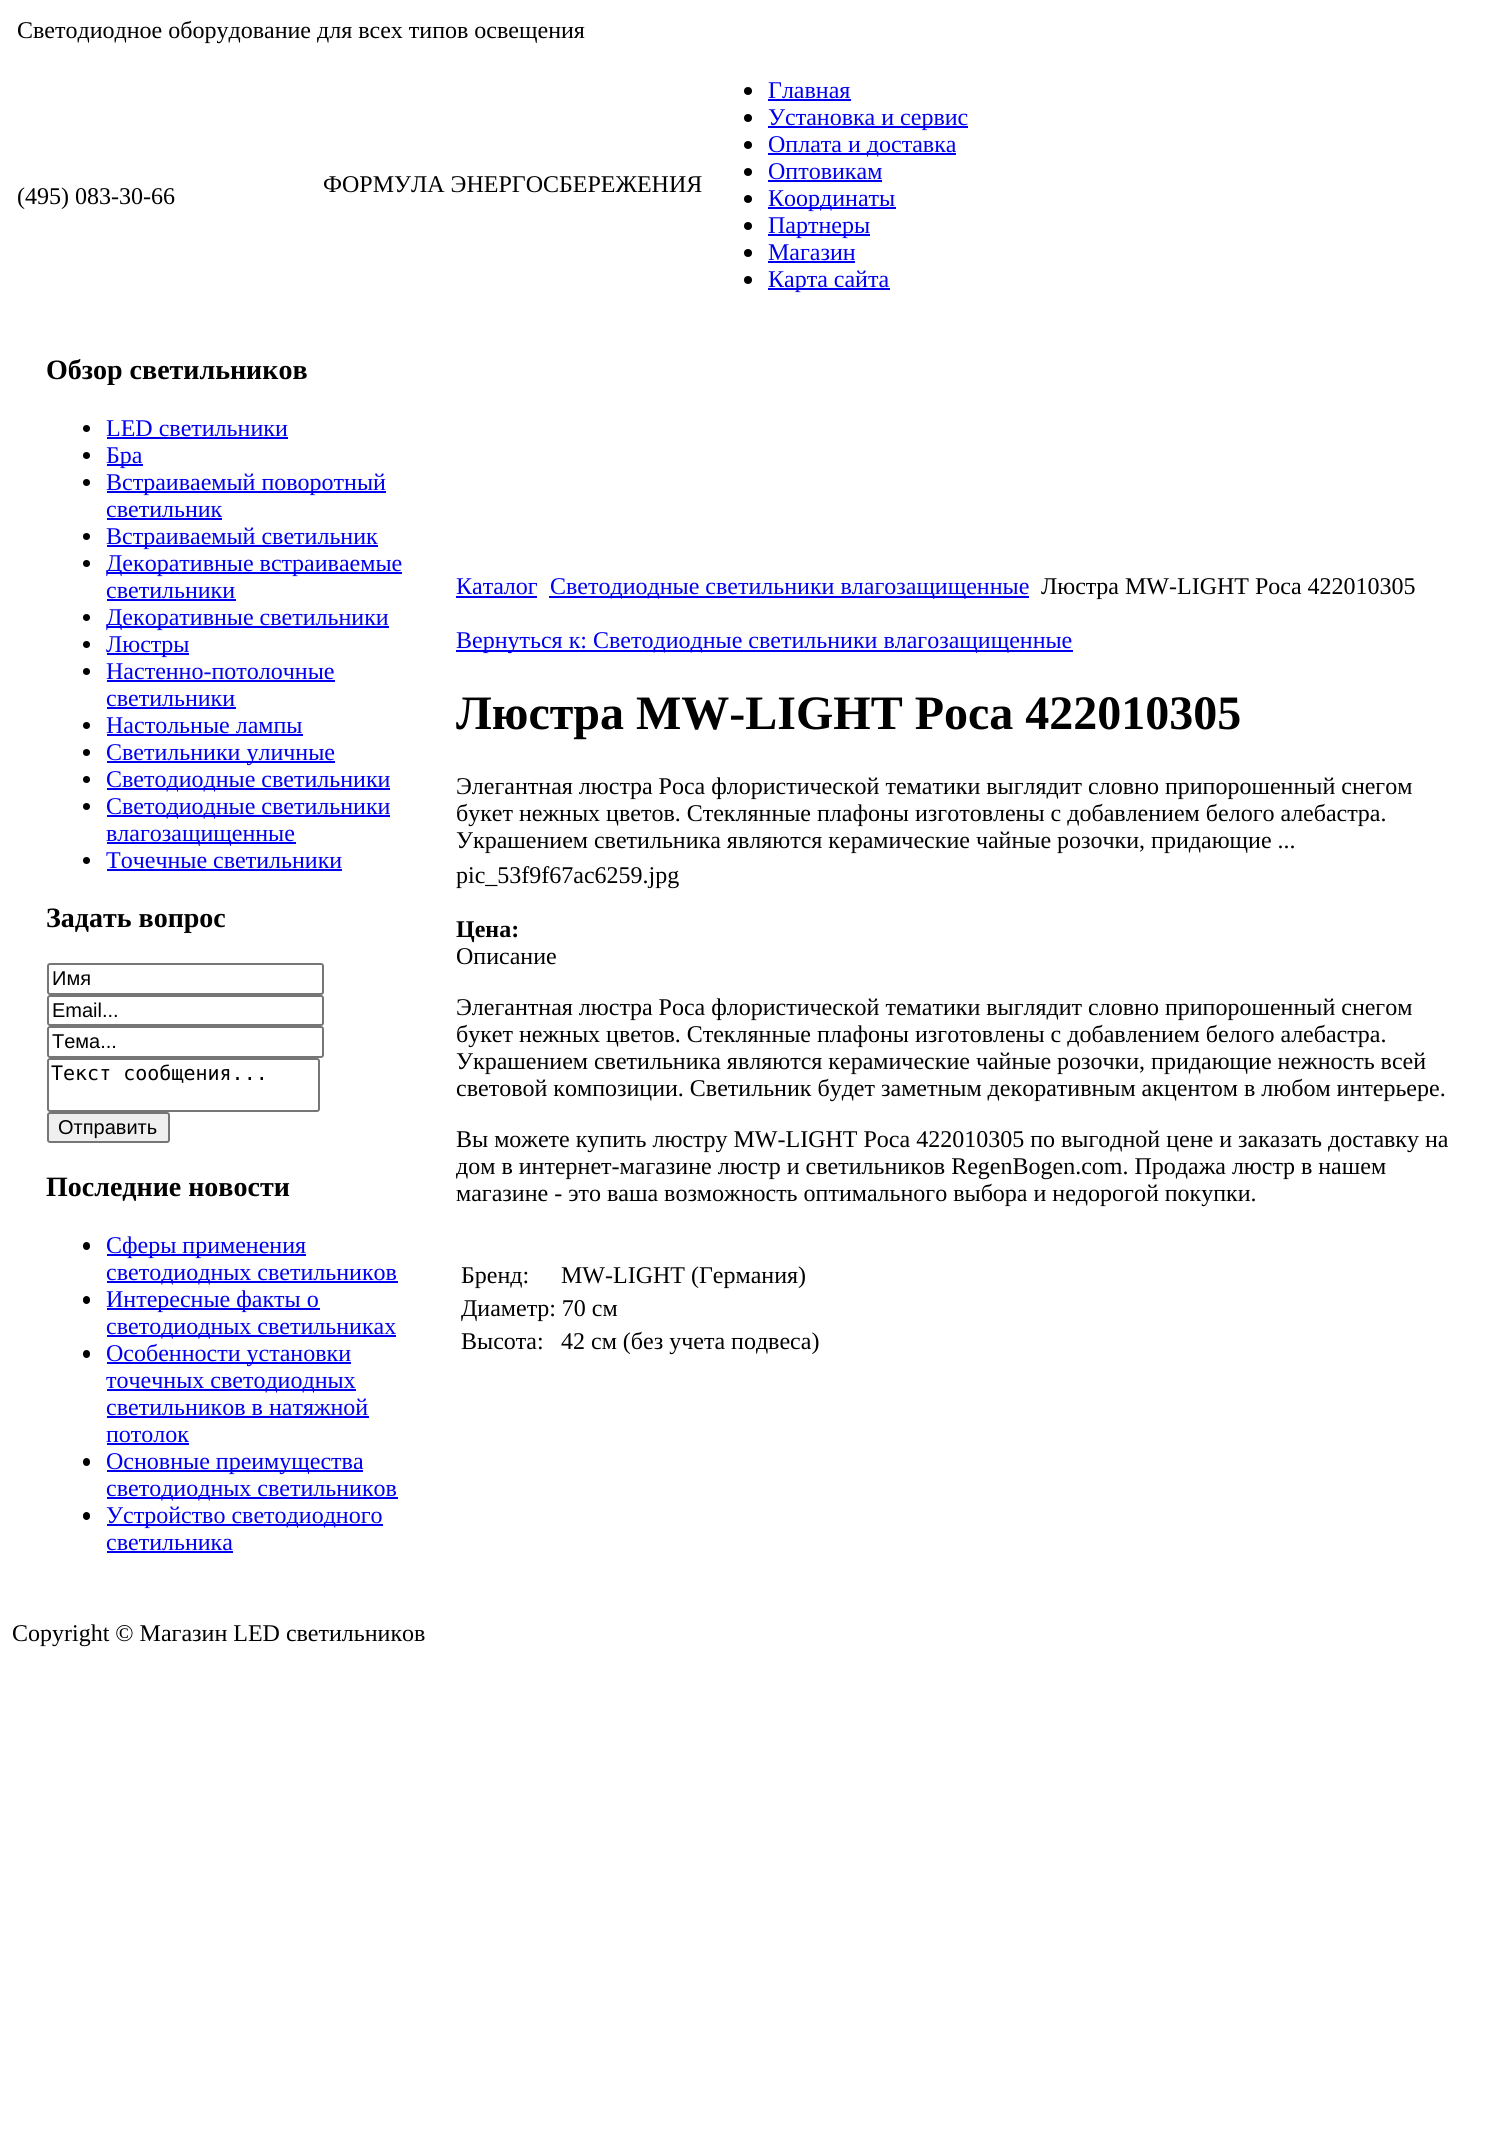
#include <cairo.h>
#include <math.h>
#include <stddef.h>

typedef struct { const char *family; double size; int italic, bold; unsigned color; } style_t;
static cairo_t *ctx;

static void ink(unsigned color) {
    cairo_set_source_rgb(ctx, (color >> 16) / 255.0, (color >> 8 & 255) / 255.0, (color & 255) / 255.0);
}

static void write(double x, double y, const char *s, const style_t *st) {
    cairo_select_font_face(ctx, st->family, st->italic ? CAIRO_FONT_SLANT_ITALIC : CAIRO_FONT_SLANT_NORMAL,
        st->bold ? CAIRO_FONT_WEIGHT_BOLD : CAIRO_FONT_WEIGHT_NORMAL);
    cairo_set_font_size(ctx, st->size);
    ink(st->color);
    cairo_move_to(ctx, x, y);
    cairo_show_text(ctx, s);
}

static void block(double x, double y, double w, double h, unsigned color) {
    ink(color);
    cairo_rectangle(ctx, x, y, w, h);
    cairo_fill(ctx);
}

static void round_path(double x, double y, double w, double h, double r) {
    cairo_new_sub_path(ctx);
    cairo_arc(ctx, x + w - r, y + h - r, r, 0, M_PI / 2);
    cairo_arc(ctx, x + r, y + h - r, r, M_PI / 2, M_PI);
    cairo_arc(ctx, x + r, y + r, r, M_PI, 1.5 * M_PI);
    cairo_arc(ctx, x + w - r, y + r, r, 1.5 * M_PI, 2 * M_PI);
    cairo_close_path(ctx);
}

static const style_t s1 = {"Liberation Serif", 24, 0, 0, 0x000000};
static const style_t s2 = {"Liberation Serif", 24, 0, 0, 0x0000ee};
static const style_t s3 = {"Liberation Serif", 28, 0, 1, 0x000000};
static const style_t s4 = {"Liberation Sans", 20, 0, 0, 0x000000};
static const style_t s5 = {"DejaVu Sans Mono", 20, 0, 0, 0x000000};
static const style_t s6 = {"Liberation Serif", 48, 0, 1, 0x000000};
static const style_t s7 = {"Liberation Serif", 24, 0, 1, 0x000000};

int main(void) {
    cairo_surface_t *surface = cairo_image_surface_create(CAIRO_FORMAT_RGB24, 1505, 2144);
    ctx = cairo_create(surface);
    cairo_font_options_t *options = cairo_font_options_create();
    cairo_font_options_set_hint_metrics(options, CAIRO_HINT_METRICS_OFF);
    cairo_font_options_set_hint_style(options, CAIRO_HINT_STYLE_NONE);
    cairo_set_font_options(ctx, options);
    cairo_set_miter_limit(ctx, 4);
    ink(0xffffff);
    cairo_paint(ctx);
    write(17, 38, "Светодиодное оборудование для всех типов освещения", &s1);
    write(323, 192, "ФОРМУЛА ЭНЕРГОСБЕРЕЖЕНИЯ", &s1);
    cairo_new_path(ctx);
    cairo_arc(ctx, 748, 91, 4, 0, 2 * M_PI);
    cairo_fill(ctx);
    write(768, 98, "Главная", &s2);
    block(768, 99, 83, 2, 0x0000ee);
    ink(0x000000);
    cairo_new_path(ctx);
    cairo_arc(ctx, 748, 118, 4, 0, 2 * M_PI);
    cairo_fill(ctx);
    block(768, 126, 200, 2, 0x0000ee);
    write(768, 125, "Установка и сервис", &s2);
    ink(0x000000);
    cairo_new_path(ctx);
    cairo_arc(ctx, 748, 145, 4, 0, 2 * M_PI);
    cairo_fill(ctx);
    block(768, 153, 188, 2, 0x0000ee);
    write(768, 152, "Оплата и доставка", &s2);
    ink(0x000000);
    cairo_new_path(ctx);
    cairo_arc(ctx, 748, 172, 4, 0, 2 * M_PI);
    cairo_fill(ctx);
    write(768, 179, "Оптовикам", &s2);
    block(768, 180, 114, 2, 0x0000ee);
    ink(0x000000);
    cairo_new_path(ctx);
    cairo_arc(ctx, 748, 199, 4, 0, 2 * M_PI);
    cairo_fill(ctx);
    block(768, 207, 128, 2, 0x0000ee);
    write(768, 206, "Координаты", &s2);
    ink(0x000000);
    cairo_new_path(ctx);
    cairo_arc(ctx, 748, 226, 4, 0, 2 * M_PI);
    cairo_fill(ctx);
    block(768, 234, 102, 2, 0x0000ee);
    write(768, 233, "Партнеры", &s2);
    ink(0x000000);
    cairo_new_path(ctx);
    cairo_arc(ctx, 748, 253, 4, 0, 2 * M_PI);
    cairo_fill(ctx);
    write(768, 260, "Магазин", &s2);
    block(768, 261, 87, 2, 0x0000ee);
    ink(0x000000);
    cairo_new_path(ctx);
    cairo_arc(ctx, 748, 280, 4, 0, 2 * M_PI);
    cairo_fill(ctx);
    block(768, 288, 122, 2, 0x0000ee);
    write(768, 287, "Карта сайта", &s2);
    write(17, 204, "(495) 083-30-66", &s1);
    write(46, 379, "Обзор светильников", &s3);
    cairo_new_path(ctx);
    cairo_arc(ctx, 86.5, 428.5, 3.5, 0, 2 * M_PI);
    cairo_fill(ctx);
    write(106, 436, "LED светильники", &s2);
    block(107, 437, 181, 2, 0x0000ee);
    ink(0x000000);
    cairo_new_path(ctx);
    cairo_arc(ctx, 86.5, 455.5, 3.5, 0, 2 * M_PI);
    cairo_fill(ctx);
    block(107, 464, 36, 2, 0x0000ee);
    write(106, 463, "Бра", &s2);
    ink(0x000000);
    cairo_new_path(ctx);
    cairo_arc(ctx, 86.5, 482.5, 3.5, 0, 2 * M_PI);
    cairo_fill(ctx);
    block(107, 491, 279, 2, 0x0000ee);
    write(106, 490, "Встраиваемый поворотный", &s2);
    write(106, 517, "светильник", &s2);
    block(107, 518, 115, 2, 0x0000ee);
    ink(0x000000);
    cairo_new_path(ctx);
    cairo_arc(ctx, 86.5, 536.5, 3.5, 0, 2 * M_PI);
    cairo_fill(ctx);
    block(107, 545, 271, 2, 0x0000ee);
    write(106, 544, "Встраиваемый светильник", &s2);
    ink(0x000000);
    cairo_new_path(ctx);
    cairo_arc(ctx, 86.5, 563.5, 3.5, 0, 2 * M_PI);
    cairo_fill(ctx);
    block(107, 572, 295, 2, 0x0000ee);
    write(106, 571, "Декоративные встраиваемые", &s2);
    write(106, 598, "светильники", &s2);
    block(107, 599, 129, 2, 0x0000ee);
    ink(0x000000);
    cairo_new_path(ctx);
    cairo_arc(ctx, 86.5, 617.5, 3.5, 0, 2 * M_PI);
    cairo_fill(ctx);
    block(107, 626, 282, 2, 0x0000ee);
    write(106, 625, "Декоративные светильники", &s2);
    ink(0x000000);
    cairo_new_path(ctx);
    cairo_arc(ctx, 86.5, 644.5, 3.5, 0, 2 * M_PI);
    cairo_fill(ctx);
    block(107, 653, 82, 2, 0x0000ee);
    write(106, 652, "Люстры", &s2);
    ink(0x000000);
    cairo_new_path(ctx);
    cairo_arc(ctx, 86.5, 671.5, 3.5, 0, 2 * M_PI);
    cairo_fill(ctx);
    write(106, 679, "Настенно-потолочные", &s2);
    block(107, 680, 228, 2, 0x0000ee);
    write(106, 706, "светильники", &s2);
    block(107, 707, 129, 2, 0x0000ee);
    ink(0x000000);
    cairo_new_path(ctx);
    cairo_arc(ctx, 86.5, 725.5, 3.5, 0, 2 * M_PI);
    cairo_fill(ctx);
    write(106, 733, "Настольные лампы", &s2);
    block(107, 734, 196, 2, 0x0000ee);
    ink(0x000000);
    cairo_new_path(ctx);
    cairo_arc(ctx, 86.5, 752.5, 3.5, 0, 2 * M_PI);
    cairo_fill(ctx);
    block(107, 761, 228, 2, 0x0000ee);
    write(106, 760, "Светильники уличные", &s2);
    ink(0x000000);
    cairo_new_path(ctx);
    cairo_arc(ctx, 86.5, 779.5, 3.5, 0, 2 * M_PI);
    cairo_fill(ctx);
    block(107, 788, 283, 2, 0x0000ee);
    write(106, 787, "Светодиодные светильники", &s2);
    ink(0x000000);
    cairo_new_path(ctx);
    cairo_arc(ctx, 86.5, 806.5, 3.5, 0, 2 * M_PI);
    cairo_fill(ctx);
    block(107, 815, 283, 2, 0x0000ee);
    write(106, 814, "Светодиодные светильники", &s2);
    block(107, 842, 189, 2, 0x0000ee);
    write(106, 841, "влагозащищенные", &s2);
    ink(0x000000);
    cairo_new_path(ctx);
    cairo_arc(ctx, 86.5, 860.5, 3.5, 0, 2 * M_PI);
    cairo_fill(ctx);
    write(106, 868, "Точечные светильники", &s2);
    block(107, 869, 235, 2, 0x0000ee);
    write(46, 927, "Задать вопрос", &s3);
    round_path(48, 964, 275, 30, 2);
    ink(0x767676);
    cairo_stroke(ctx);
    write(52, 985, "Имя", &s4);
    round_path(48, 996, 275, 29, 2);
    ink(0x767676);
    cairo_stroke(ctx);
    write(52, 1017, "Email...", &s4);
    round_path(48, 1027, 275, 30, 2);
    ink(0x767676);
    cairo_stroke(ctx);
    write(52, 1048, "Тема...", &s4);
    round_path(48, 1059, 271, 52, 2);
    ink(0x767676);
    cairo_stroke(ctx);
    write(51, 1080, "Текст сообщения...", &s5);
    ink(0xefefef);
    round_path(48, 1113, 121, 29, 2);
    cairo_fill_preserve(ctx);
    ink(0x767676);
    cairo_stroke(ctx);
    write(58, 1134, "Отправить", &s4);
    write(46, 1196, "Последние новости", &s3);
    round_path(83, 1242, 7, 8, 3.5);
    cairo_fill(ctx);
    block(107, 1254, 199, 2, 0x0000ee);
    write(106, 1253, "Сферы применения", &s2);
    block(107, 1281, 291, 2, 0x0000ee);
    write(106, 1280, "светодиодных светильников", &s2);
    ink(0x000000);
    round_path(83, 1296, 7, 8, 3.5);
    cairo_fill(ctx);
    block(107, 1308, 213, 2, 0x0000ee);
    write(106, 1307, "Интересные факты о", &s2);
    block(107, 1335, 289, 2, 0x0000ee);
    write(106, 1334, "светодиодных светильниках", &s2);
    ink(0x000000);
    round_path(83, 1350, 7, 8, 3.5);
    cairo_fill(ctx);
    block(107, 1362, 244, 2, 0x0000ee);
    write(106, 1361, "Особенности установки", &s2);
    block(107, 1389, 249, 2, 0x0000ee);
    write(106, 1388, "точечных светодиодных", &s2);
    write(106, 1415, "светильников в натяжной", &s2);
    block(107, 1416, 262, 2, 0x0000ee);
    write(106, 1442, "потолок", &s2);
    block(107, 1443, 82, 2, 0x0000ee);
    ink(0x000000);
    round_path(83, 1458, 7, 8, 3.5);
    cairo_fill(ctx);
    block(107, 1470, 256, 2, 0x0000ee);
    write(106, 1469, "Основные преимущества", &s2);
    block(107, 1497, 291, 2, 0x0000ee);
    write(106, 1496, "светодиодных светильников", &s2);
    ink(0x000000);
    round_path(83, 1512, 7, 8, 3.5);
    cairo_fill(ctx);
    block(107, 1524, 276, 2, 0x0000ee);
    write(106, 1523, "Устройство светодиодного", &s2);
    write(106, 1550, "светильника", &s2);
    block(107, 1551, 126, 2, 0x0000ee);
    write(456, 594, "Каталог", &s2);
    block(456, 596, 81, 2, 0x0000ee);
    block(549, 596, 480, 2, 0x0000ee);
    write(550, 594, "Светодиодные светильники влагозащищенные", &s2);
    write(1041, 594, "Люстра MW-LIGHT Роса 422010305", &s1);
    block(456, 650, 617, 2, 0x0000ee);
    write(456, 648, "Вернуться к: Светодиодные светильники влагозащищенные", &s2);
    write(456, 729, "Люстра MW-LIGHT Роса 422010305", &s6);
    write(456, 794, "Элегантная люстра Роса флористической тематики выглядит словно припорошенный снегом", &s1);
    write(456, 821, "букет нежных цветов. Стеклянные плафоны изготовлены с добавлением белого алебастра.", &s1);
    write(456, 848, "Украшением светильника являются керамические чайные розочки, придающие ...", &s1);
    write(456, 883, "pic_53f9f67ac6259.jpg", &s1);
    write(456, 937, "Цена:", &s7);
    write(456, 964, "Описание", &s1);
    write(456, 1015, "Элегантная люстра Роса флористической тематики выглядит словно припорошенный снегом", &s1);
    write(456, 1042, "букет нежных цветов. Стеклянные плафоны изготовлены с добавлением белого алебастра.", &s1);
    write(456, 1069, "Украшением светильника являются керамические чайные розочки, придающие нежность всей", &s1);
    write(456, 1096, "световой композиции. Светильник будет заметным декоративным акцентом в любом интерьере.", &s1);
    write(456, 1147, "Вы можете купить люстру MW-LIGHT Роса 422010305 по выгодной цене и заказать доставку на", &s1);
    write(456, 1174, "дом в интернет-магазине люстр и светильников RegenBogen.com. Продажа люстр в нашем", &s1);
    write(456, 1201, "магазине - это ваша возможность оптимального выбора и недорогой покупки.", &s1);
    write(461, 1283, "Бренд:", &s1);
    write(561, 1283, "MW-LIGHT (Германия)", &s1);
    write(461, 1316, "Диаметр: 70 см", &s1);
    write(461, 1349, "Высота:", &s1);
    write(561, 1349, "42 см (без учета подвеса)", &s1);
    write(12, 1641, "Copyright © Магазин LED светильников", &s1);
    cairo_surface_write_to_png(surface, "screenshot.png");
    cairo_font_options_destroy(options);
    cairo_destroy(ctx);
    cairo_surface_destroy(surface);
    return 0;
}
